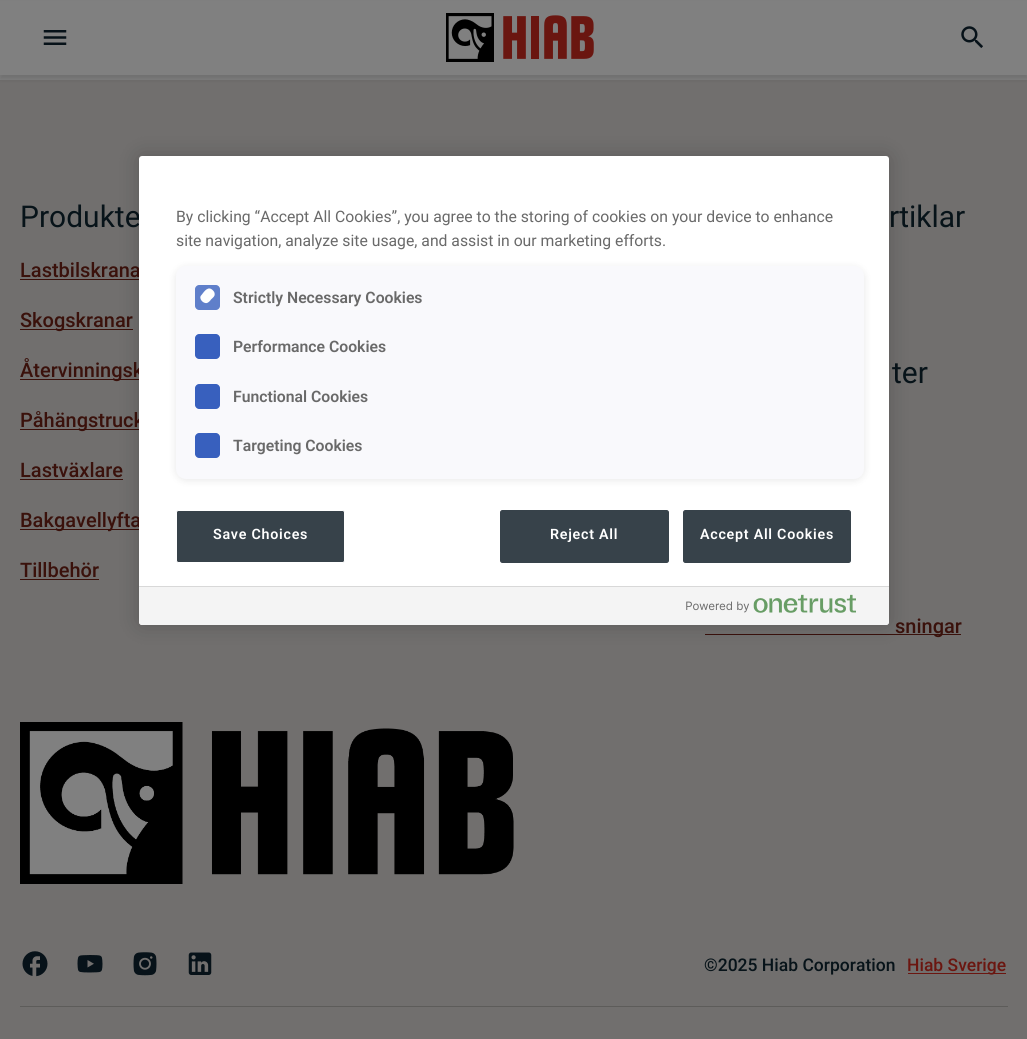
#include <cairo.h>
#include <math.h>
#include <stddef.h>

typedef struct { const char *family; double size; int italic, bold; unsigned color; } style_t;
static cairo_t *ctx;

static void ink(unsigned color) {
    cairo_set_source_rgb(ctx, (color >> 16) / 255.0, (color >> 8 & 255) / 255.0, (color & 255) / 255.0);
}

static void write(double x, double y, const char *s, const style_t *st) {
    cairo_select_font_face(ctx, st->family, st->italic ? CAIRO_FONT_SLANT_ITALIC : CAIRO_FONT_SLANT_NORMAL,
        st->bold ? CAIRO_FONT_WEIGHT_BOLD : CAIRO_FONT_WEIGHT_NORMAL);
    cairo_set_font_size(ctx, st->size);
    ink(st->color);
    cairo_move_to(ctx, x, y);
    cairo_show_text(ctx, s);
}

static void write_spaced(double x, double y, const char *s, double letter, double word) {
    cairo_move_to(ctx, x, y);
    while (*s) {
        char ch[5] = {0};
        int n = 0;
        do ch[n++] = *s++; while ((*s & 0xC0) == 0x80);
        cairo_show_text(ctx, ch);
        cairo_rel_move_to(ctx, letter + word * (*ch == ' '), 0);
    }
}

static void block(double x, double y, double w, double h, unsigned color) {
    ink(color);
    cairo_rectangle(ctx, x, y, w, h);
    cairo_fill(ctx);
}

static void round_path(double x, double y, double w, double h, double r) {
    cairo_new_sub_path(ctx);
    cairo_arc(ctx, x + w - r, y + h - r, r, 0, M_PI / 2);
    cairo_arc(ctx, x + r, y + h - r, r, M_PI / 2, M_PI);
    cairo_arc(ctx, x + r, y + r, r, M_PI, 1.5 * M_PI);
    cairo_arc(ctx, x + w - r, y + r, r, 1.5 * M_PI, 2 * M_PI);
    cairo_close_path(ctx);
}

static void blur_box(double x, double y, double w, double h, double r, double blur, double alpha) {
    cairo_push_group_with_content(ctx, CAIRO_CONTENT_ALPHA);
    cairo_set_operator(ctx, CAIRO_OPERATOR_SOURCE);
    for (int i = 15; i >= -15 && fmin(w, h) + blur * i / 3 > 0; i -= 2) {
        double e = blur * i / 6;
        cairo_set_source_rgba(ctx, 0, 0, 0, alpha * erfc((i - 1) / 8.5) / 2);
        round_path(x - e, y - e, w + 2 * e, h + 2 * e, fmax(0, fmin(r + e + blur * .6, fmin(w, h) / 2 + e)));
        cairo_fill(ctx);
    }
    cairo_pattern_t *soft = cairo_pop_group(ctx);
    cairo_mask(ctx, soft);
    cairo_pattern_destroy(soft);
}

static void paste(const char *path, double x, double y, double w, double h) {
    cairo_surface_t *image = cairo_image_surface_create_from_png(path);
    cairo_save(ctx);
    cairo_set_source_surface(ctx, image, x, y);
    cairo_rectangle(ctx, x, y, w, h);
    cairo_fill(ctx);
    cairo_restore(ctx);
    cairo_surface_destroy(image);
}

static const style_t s1 = {"Roboto", 30, 0, 0, 0x071319};
static const style_t s2 = {"Roboto Medium", 20, 0, 0, 0x3a110b};
static const style_t s3 = {"Roboto Medium", 17.5, 0, 0, 0x071319};
static const style_t s4 = {"Roboto Medium", 17.5, 0, 0, 0x6b1610};
static const style_t s5 = {"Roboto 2", 15.75, 0, 0, 0x696969};
static const style_t s6 = {"Roboto SemiBold", 15.75, 0, 0, 0x696969};

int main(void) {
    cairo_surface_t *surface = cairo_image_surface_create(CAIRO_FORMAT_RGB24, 1027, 1039);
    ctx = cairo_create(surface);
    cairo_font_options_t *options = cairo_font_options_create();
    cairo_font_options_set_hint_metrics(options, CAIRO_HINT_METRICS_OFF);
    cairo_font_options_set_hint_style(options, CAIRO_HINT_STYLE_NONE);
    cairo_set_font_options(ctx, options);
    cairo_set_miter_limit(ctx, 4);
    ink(0x808080);
    cairo_paint(ctx);
    block(0, 80, 1027, 959, 0x716f6e);
    ink(0x000000);
    blur_box(0, 4, 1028, 75, 0, 2.5, 0.13);
    block(0, 1, 1027, 74, 0x808080);
    paste("pic1.png", 43, 30, 24, 15);
    paste("pic2.png", 446, 13, 148, 49);
    paste("pic3.png", 961, 26, 22, 22);
    write(20, 227, "Produkte", &s1);
    write(20, 277, "Lastbilskrana", &s2);
    block(20, 279, 119, 1, 0x3a110b);
    block(20, 329, 113, 1, 0x3a110b);
    write(20, 327, "Skogskranar", &s2);
    block(20, 379, 119, 1, 0x3a110b);
    write(20, 377, "Återvinningsk", &s2);
    block(20, 429, 119, 1, 0x3a110b);
    write(20, 427, "Påhängstruck", &s2);
    write(20, 477, "Lastväxlare", &s2);
    block(20, 479, 103, 1, 0x3a110b);
    block(20, 529, 119, 1, 0x3a110b);
    write(20, 527, "Bakgavellyfta", &s2);
    write(20, 577, "Tillbehör", &s2);
    block(20, 579, 79, 1, 0x3a110b);
    write(889, 227, "rtiklar", &s1);
    write(892, 383, "ter", &s1);
    block(705, 634, 256, 1, 0x3a110b);
    write(895, 633, "sningar", &s2);
    paste("pic4.png", 20, 722, 494, 162);
    block(20, 1006, 988, 1, 0x5d5c5a);
    paste("pic5.png", 22, 951, 26, 26);
    paste("pic6.png", 77, 955, 26, 18);
    paste("pic7.png", 133, 952, 24, 24);
    paste("pic8.png", 188, 952, 24, 23);
    write(704, 971, "©2025 Hiab Corporation", &s3);
    block(908, 973, 98, 1, 0x6b1610);
    write(907, 971, "Hiab Sverige", &s4);
    ink(0x000000);
    blur_box(139, 156, 750, 469, 3, 11, 0.2);
    ink(0xffffff);
    round_path(139, 156, 750, 469, 3);
    cairo_fill(ctx);
    write(176, 222, "By clicking “Accept All Cookies”, you agree to the storing of cookies on your device to enhance", &s5);
    write(176, 246, "site navigation, analyze site usage, and assist in our marketing efforts.", &s5);
    ink(0x000000);
    blur_box(176, 268, 688, 212, 10, 4, 0.1);
    ink(0xf9f9fc);
    round_path(176, 266, 688, 213, 10);
    cairo_fill(ctx);
    ink(0x5f7fca);
    cairo_new_path(ctx);
    cairo_move_to(ctx, 199, 285);
    cairo_line_to(ctx, 216, 285);
    cairo_curve_to(ctx, 218, 285, 220, 287, 220, 289);
    cairo_line_to(ctx, 220, 306);
    cairo_curve_to(ctx, 220, 308, 218, 310, 216, 310);
    cairo_line_to(ctx, 199, 310);
    cairo_curve_to(ctx, 197, 310, 195, 308, 195, 306);
    cairo_line_to(ctx, 195, 289);
    cairo_curve_to(ctx, 195, 287, 197, 285, 199, 285);
    cairo_close_path(ctx);
    cairo_fill(ctx);
    ink(0xfefefe);
    cairo_new_path(ctx);
    cairo_move_to(ctx, 201.5, 295);
    cairo_curve_to(ctx, 204.5, 291, 208.5, 285, 213.5, 291);
    cairo_curve_to(ctx, 214.5, 292, 215, 294, 214.5, 295.5);
    cairo_curve_to(ctx, 214, 297, 212, 298.5, 211, 299.5);
    cairo_curve_to(ctx, 210, 301, 208.5, 302.5, 207, 303);
    cairo_curve_to(ctx, 203, 304, 198, 298, 201.5, 295);
    cairo_close_path(ctx);
    cairo_fill(ctx);
    write(233, 303, "Strictly Necessary Cookies", &s6);
    ink(0x3860be);
    cairo_new_path(ctx);
    cairo_move_to(ctx, 199, 334);
    cairo_line_to(ctx, 216, 334);
    cairo_curve_to(ctx, 218, 334, 220, 336, 220, 338);
    cairo_line_to(ctx, 220, 355);
    cairo_curve_to(ctx, 220, 357, 218, 359, 216, 359);
    cairo_line_to(ctx, 199, 359);
    cairo_curve_to(ctx, 197, 359, 195, 357, 195, 355);
    cairo_line_to(ctx, 195, 338);
    cairo_curve_to(ctx, 195, 336, 197, 334, 199, 334);
    cairo_close_path(ctx);
    cairo_fill(ctx);
    write(233, 352, "Performance Cookies", &s6);
    ink(0x3860be);
    cairo_new_path(ctx);
    cairo_move_to(ctx, 199, 384);
    cairo_line_to(ctx, 216, 384);
    cairo_curve_to(ctx, 218, 384, 220, 386, 220, 388);
    cairo_line_to(ctx, 220, 405);
    cairo_curve_to(ctx, 220, 407, 218, 409, 216, 409);
    cairo_line_to(ctx, 199, 409);
    cairo_curve_to(ctx, 197, 409, 195, 407, 195, 405);
    cairo_line_to(ctx, 195, 388);
    cairo_curve_to(ctx, 195, 386, 197, 384, 199, 384);
    cairo_close_path(ctx);
    cairo_fill(ctx);
    write(233, 402, "Functional Cookies", &s6);
    ink(0x3860be);
    cairo_new_path(ctx);
    cairo_move_to(ctx, 199, 433);
    cairo_line_to(ctx, 216, 433);
    cairo_curve_to(ctx, 218, 433, 220, 435, 220, 437);
    cairo_line_to(ctx, 220, 454);
    cairo_curve_to(ctx, 220, 456, 218, 458, 216, 458);
    cairo_line_to(ctx, 199, 458);
    cairo_curve_to(ctx, 197, 458, 195, 456, 195, 454);
    cairo_line_to(ctx, 195, 437);
    cairo_curve_to(ctx, 195, 435, 197, 433, 199, 433);
    cairo_close_path(ctx);
    cairo_fill(ctx);
    write(233, 451, "Targeting Cookies", &s6);
    ink(0x37424a);
    round_path(176.5, 510.5, 168, 52, 2);
    cairo_fill_preserve(ctx);
    ink(0xffffff);
    cairo_set_line_width(ctx, 1);
    cairo_stroke(ctx);
    cairo_set_font_size(ctx, 14.25);
    write_spaced(213, 539, "Save Choices", 0.75, 0);
    ink(0x37424a);
    round_path(500.5, 510.5, 168, 52, 2);
    cairo_fill_preserve(ctx);
    cairo_stroke(ctx);
    ink(0xffffff);
    write_spaced(550, 539, "Reject All", 0.75, 0);
    ink(0x37424a);
    round_path(683.5, 510.5, 167, 52, 2);
    cairo_fill_preserve(ctx);
    cairo_stroke(ctx);
    ink(0xffffff);
    write_spaced(700, 539, "Accept All Cookies", 0.75, 0);
    ink(0xf4f4f4);
    cairo_new_path(ctx);
    cairo_move_to(ctx, 139, 586);
    cairo_line_to(ctx, 889, 586);
    cairo_line_to(ctx, 889, 622);
    cairo_curve_to(ctx, 889, 623.5, 887.5, 625, 886, 625);
    cairo_line_to(ctx, 142, 625);
    cairo_curve_to(ctx, 140.5, 625, 139, 623.5, 139, 622);
    cairo_close_path(ctx);
    cairo_fill(ctx);
    block(139, 586, 750, 1, 0xd8d8d8);
    paste("pic9.png", 686, 594, 170, 19);
    cairo_surface_write_to_png(surface, "screenshot.png");
    cairo_font_options_destroy(options);
    cairo_destroy(ctx);
    cairo_surface_destroy(surface);
    return 0;
}
